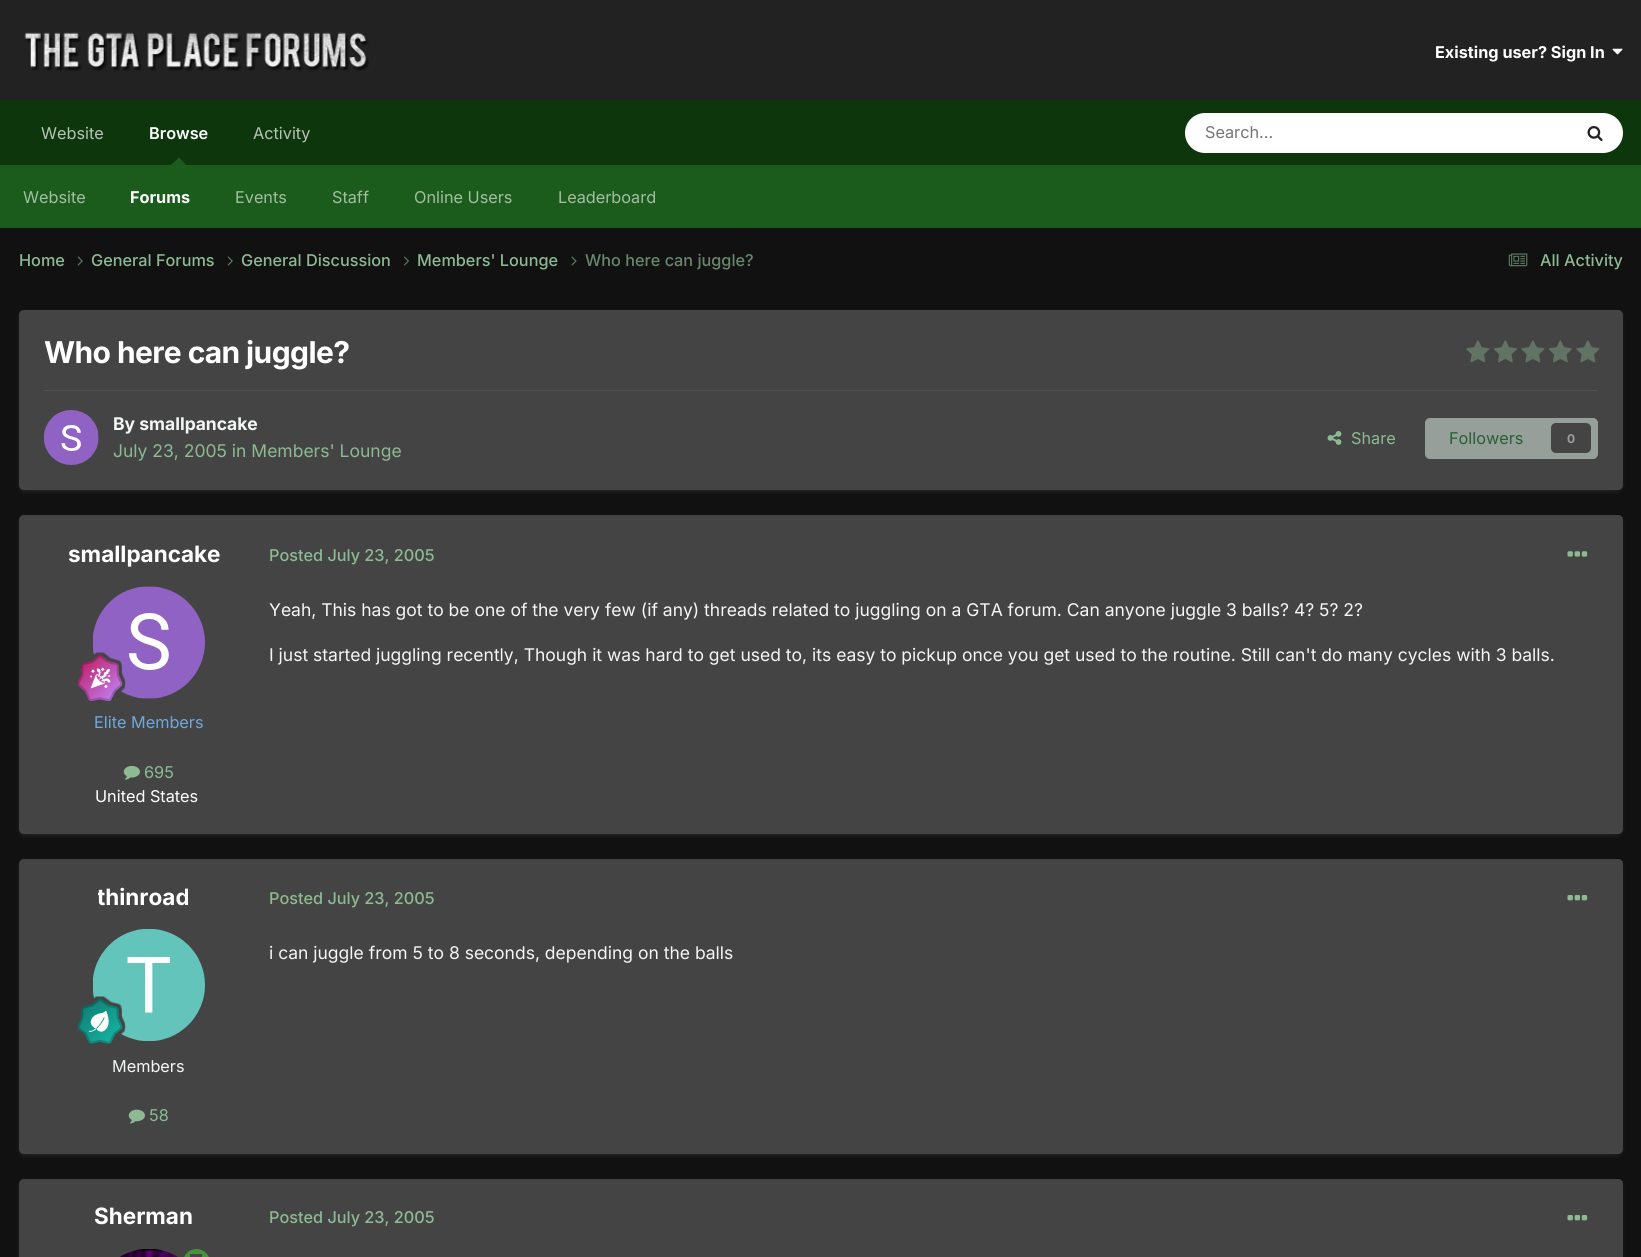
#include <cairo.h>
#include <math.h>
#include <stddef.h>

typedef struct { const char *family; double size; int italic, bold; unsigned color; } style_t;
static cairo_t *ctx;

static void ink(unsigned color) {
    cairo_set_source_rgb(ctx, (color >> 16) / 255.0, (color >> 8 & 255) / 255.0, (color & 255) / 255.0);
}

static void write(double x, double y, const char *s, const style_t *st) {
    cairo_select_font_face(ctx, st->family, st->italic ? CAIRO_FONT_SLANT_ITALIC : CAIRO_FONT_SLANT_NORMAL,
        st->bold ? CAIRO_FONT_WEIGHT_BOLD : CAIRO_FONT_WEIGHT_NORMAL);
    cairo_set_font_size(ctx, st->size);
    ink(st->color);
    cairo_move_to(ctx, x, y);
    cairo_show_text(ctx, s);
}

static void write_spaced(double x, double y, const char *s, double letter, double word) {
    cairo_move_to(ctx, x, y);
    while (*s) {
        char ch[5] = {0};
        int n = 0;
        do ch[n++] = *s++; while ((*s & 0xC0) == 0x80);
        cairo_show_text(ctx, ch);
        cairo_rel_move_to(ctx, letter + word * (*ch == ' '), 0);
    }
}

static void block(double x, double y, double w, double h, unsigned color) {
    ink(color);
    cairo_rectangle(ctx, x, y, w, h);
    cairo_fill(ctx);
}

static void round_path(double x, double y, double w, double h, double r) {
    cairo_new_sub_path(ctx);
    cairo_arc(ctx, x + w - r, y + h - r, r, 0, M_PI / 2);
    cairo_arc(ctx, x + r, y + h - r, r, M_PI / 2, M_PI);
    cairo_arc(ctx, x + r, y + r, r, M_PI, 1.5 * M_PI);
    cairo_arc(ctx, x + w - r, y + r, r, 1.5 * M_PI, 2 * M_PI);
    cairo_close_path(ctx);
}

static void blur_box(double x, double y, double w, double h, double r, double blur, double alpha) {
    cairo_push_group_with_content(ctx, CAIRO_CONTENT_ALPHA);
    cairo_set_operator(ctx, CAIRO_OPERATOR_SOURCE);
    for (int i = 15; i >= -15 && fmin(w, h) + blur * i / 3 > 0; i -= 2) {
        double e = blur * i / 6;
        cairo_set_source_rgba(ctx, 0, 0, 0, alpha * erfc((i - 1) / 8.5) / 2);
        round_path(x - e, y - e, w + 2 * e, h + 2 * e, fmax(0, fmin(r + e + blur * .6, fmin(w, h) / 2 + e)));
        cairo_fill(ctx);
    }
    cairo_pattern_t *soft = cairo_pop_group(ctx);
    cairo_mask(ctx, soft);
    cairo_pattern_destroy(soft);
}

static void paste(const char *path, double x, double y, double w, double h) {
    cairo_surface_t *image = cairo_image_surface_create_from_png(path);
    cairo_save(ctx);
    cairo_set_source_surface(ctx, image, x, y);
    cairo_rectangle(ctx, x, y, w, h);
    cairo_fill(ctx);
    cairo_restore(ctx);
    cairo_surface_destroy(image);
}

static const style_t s1 = {"Inter", 16.25, 0, 1, 0xffffff};
static const style_t s2 = {"Inter", 16.25, 0, 0, 0xb7c3b6};
static const style_t s3 = {"Inter SemiBold", 16.25, 0, 0, 0xffffff};
static const style_t s4 = {"Inter", 16.25, 0, 0, 0xa4bda4};
static const style_t s5 = {"Inter", 16.25, 0, 0, 0x757575};
static const style_t s6 = {"Inter Medium", 16.25, 0, 0, 0x8db993};
static const style_t s7 = {"Inter Medium", 16.25, 0, 0, 0x68876c};
static const style_t s8 = {"Inter", 17.5, 0, 1, 0xf3f6f4};
static const style_t s9 = {"Inter", 17.5, 0, 0, 0x8db993};
static const style_t s10 = {"Inter", 16.25, 0, 0, 0x8db993};
static const style_t s11 = {"Inter", 16.25, 0, 0, 0x295f34};
static const style_t s12 = {"Inter", 12, 0, 1, 0x9c9d9c};
static const style_t s13 = {"Inter", 22.5, 0, 1, 0xffffff};
static const style_t s14 = {"Inter", 16.25, 0, 0, 0x6fa8dc};
static const style_t s15 = {"Inter", 16.25, 0, 0, 0xffffff};
static const style_t s16 = {"Inter", 17.5, 0, 0, 0xf3f6f4};
static const style_t s17 = {"Inter", 16.25, 0, 0, 0xf3f6f4};

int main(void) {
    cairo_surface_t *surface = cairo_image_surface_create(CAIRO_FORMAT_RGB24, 1641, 1257);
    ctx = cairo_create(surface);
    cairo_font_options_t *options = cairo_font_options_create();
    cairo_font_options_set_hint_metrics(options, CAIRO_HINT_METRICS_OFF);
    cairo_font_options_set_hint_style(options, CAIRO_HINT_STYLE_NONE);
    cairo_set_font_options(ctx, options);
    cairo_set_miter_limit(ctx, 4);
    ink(0x111111);
    cairo_paint(ctx);
    block(0, 0, 1641, 100, 0x222222);
    paste("pic1.png", 24, 32, 345, 39);
    write(1435, 58, "Existing user? Sign In", &s1);
    paste("pic2.png", 1612, 48, 11, 7);
    block(0, 100, 1641, 65, 0x0e360d);
    write(41, 139, "Website", &s2);
    write(253, 139, "Activity", &s2);
    write(149, 139, "Browse", &s3);
    ink(0x1b5b1b);
    cairo_new_path(ctx);
    cairo_move_to(ctx, 186, 165);
    cairo_line_to(ctx, 171, 165);
    cairo_line_to(ctx, 179, 157.5);
    cairo_close_path(ctx);
    cairo_fill(ctx);
    block(0, 165, 1641, 63, 0x1b5b1b);
    write(23, 203, "Website", &s4);
    write(130, 203, "Forums", &s1);
    write(235, 203, "Events", &s4);
    write(332, 203, "Staff", &s4);
    write(414, 203, "Online Users", &s4);
    write(558, 203, "Leaderboard", &s4);
    ink(0xffffff);
    round_path(1185, 113, 438, 40, 20);
    cairo_fill(ctx);
    write(1205, 138, "Search...", &s5);
    paste("pic3.png", 1587, 126, 16, 16);
    write(19, 266, "Home", &s6);
    paste("pic4.png", 77, 256, 6, 10);
    write(91, 266, "General Forums", &s6);
    paste("pic4.png", 227, 256, 6, 10);
    write(241, 266, "General Discussion", &s6);
    paste("pic5.png", 404, 256, 5, 10);
    write(417, 266, "Members' Lounge", &s6);
    paste("pic6.png", 571, 256, 6, 10);
    write(585, 266, "Who here can juggle?", &s7);
    paste("pic7.png", 1508, 253, 20, 14);
    write(1540, 266, "All Activity", &s6);
    ink(0xedf7ef);
    blur_box(20, 314, 1601, 177, 4, 2.5, 0.1);
    ink(0x444444);
    round_path(19, 310, 1604, 180, 5);
    cairo_fill(ctx);
    cairo_select_font_face(ctx, "Inter", CAIRO_FONT_SLANT_NORMAL, CAIRO_FONT_WEIGHT_BOLD);
    cairo_set_font_size(ctx, 30);
    ink(0xffffff);
    write_spaced(44, 363, "Who here can juggle?", -0.6, 0);
    paste("pic8.png", 1466, 340, 24, 23);
    paste("pic9.png", 1493, 340, 24, 23);
    paste("pic8.png", 1521, 340, 24, 23);
    paste("pic9.png", 1548, 340, 24, 23);
    paste("pic8.png", 1576, 340, 24, 23);
    block(44, 390, 1554, 1, 0x525252);
    paste("pic10.png", 44, 410, 55, 55);
    write(113, 430, "By smallpancake", &s8);
    write(113, 457, "July 23, 2005 in Members' Lounge", &s9);
    paste("pic11.png", 1327, 431, 15, 14);
    write(1351, 444, "Share", &s10);
    ink(0x969f99);
    round_path(1425, 418, 173, 41, 5);
    cairo_fill(ctx);
    write(1449, 444, "Followers", &s11);
    ink(0x444444);
    round_path(1551, 423, 40, 30, 5);
    cairo_fill(ctx);
    write(1567, 443, "0", &s12);
    ink(0xedf7ef);
    blur_box(20, 519, 1601, 316, 4, 2.5, 0.1);
    ink(0x444444);
    round_path(19, 515, 1604, 319, 5);
    cairo_fill(ctx);
    write(68, 562, "smallpancake", &s13);
    paste("pic12.png", 93, 586, 112, 113);
    paste("pic13.png", 78, 652, 48, 49);
    write(94, 728, "Elite Members", &s14);
    paste("pic14.png", 123, 765, 17, 15);
    write(144, 778, "695", &s10);
    write(95, 802, "United States", &s15);
    write(269, 561, "Posted July 23, 2005", &s6);
    paste("pic15.png", 1567, 551, 21, 6);
    write(269, 616, "Yeah, This has got to be one of the very few (if any) threads related to juggling on a GTA forum. Can anyone juggle 3 balls? 4? 5? 2?", &s16);
    write(269, 661, "I just started juggling recently, Though it was hard to get used to, its easy to pickup once you get used to the routine. Still can't do many cycles with 3 balls.", &s16);
    ink(0xedf7ef);
    blur_box(20, 863, 1601, 292, 4, 2.5, 0.1);
    ink(0x444444);
    round_path(19, 859, 1604, 295, 5);
    cairo_fill(ctx);
    cairo_save(ctx);
    cairo_rectangle(ctx, 98, 884, 92, 27);
    cairo_clip(ctx);
    write(97, 905, "thinroad", &s13);
    cairo_restore(ctx);
    paste("pic16.png", 93, 929, 112, 112);
    paste("pic17.png", 78, 996, 48, 48);
    write(112, 1072, "Members", &s17);
    paste("pic18.png", 128, 1109, 17, 15);
    write(149, 1121, "58", &s10);
    write(269, 904, "Posted July 23, 2005", &s6);
    paste("pic19.png", 1567, 895, 21, 6);
    write(269, 959, "i can juggle from 5 to 8 seconds, depending on the balls", &s16);
    ink(0xedf7ef);
    blur_box(20, 1183, 1601, 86, 4, 2.5, 0.1);
    ink(0x444444);
    round_path(19, 1179, 1604, 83, 5);
    cairo_fill(ctx);
    write(94, 1224, "Sherman", &s13);
    paste("pic20.png", 120, 1249, 58, 8);
    ink(0x45943d);
    round_path(181.5, 1247.5, 30, 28, 15);
    cairo_fill_preserve(ctx);
    ink(0x444444);
    cairo_set_line_width(ctx, 3);
    cairo_stroke(ctx);
    block(190, 1254, 12, 3, 0x444444);
    write(269, 1223, "Posted July 23, 2005", &s6);
    paste("pic19.png", 1567, 1215, 21, 6);
    cairo_surface_write_to_png(surface, "screenshot.png");
    cairo_font_options_destroy(options);
    cairo_destroy(ctx);
    cairo_surface_destroy(surface);
    return 0;
}
